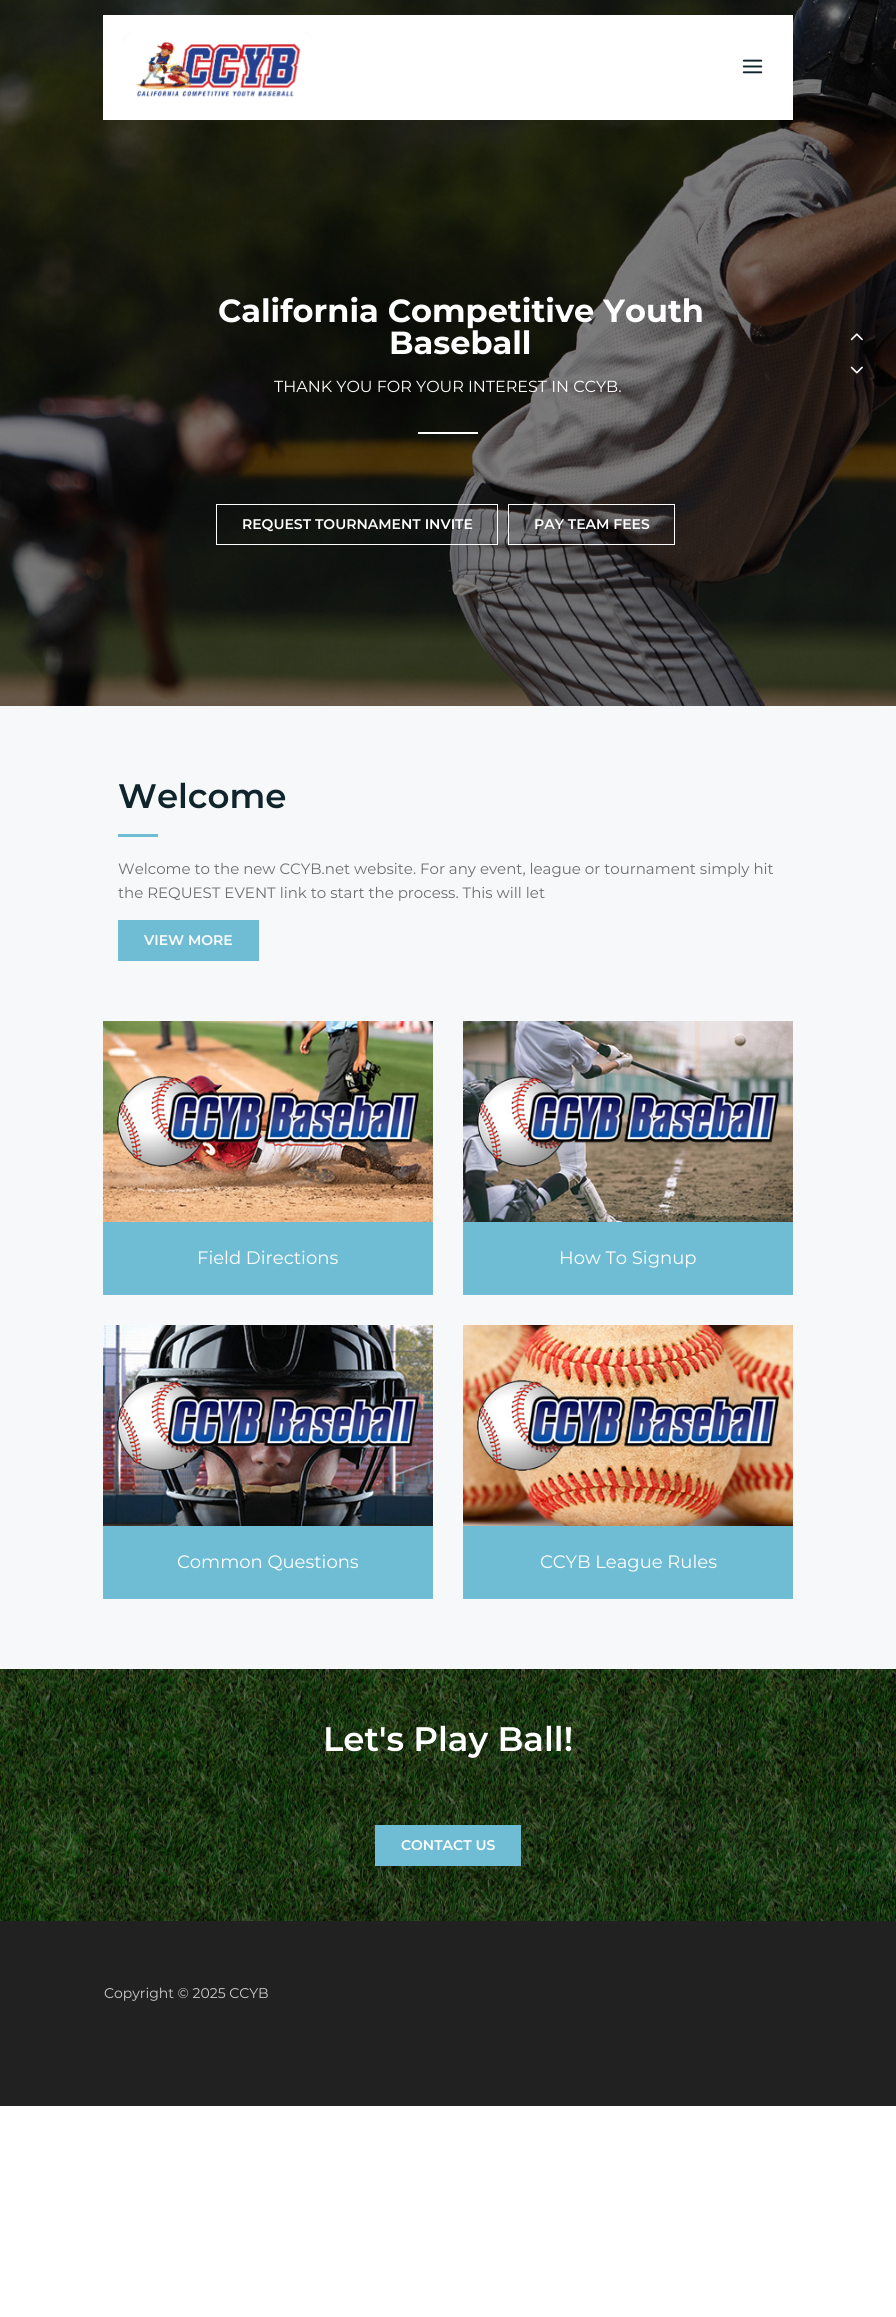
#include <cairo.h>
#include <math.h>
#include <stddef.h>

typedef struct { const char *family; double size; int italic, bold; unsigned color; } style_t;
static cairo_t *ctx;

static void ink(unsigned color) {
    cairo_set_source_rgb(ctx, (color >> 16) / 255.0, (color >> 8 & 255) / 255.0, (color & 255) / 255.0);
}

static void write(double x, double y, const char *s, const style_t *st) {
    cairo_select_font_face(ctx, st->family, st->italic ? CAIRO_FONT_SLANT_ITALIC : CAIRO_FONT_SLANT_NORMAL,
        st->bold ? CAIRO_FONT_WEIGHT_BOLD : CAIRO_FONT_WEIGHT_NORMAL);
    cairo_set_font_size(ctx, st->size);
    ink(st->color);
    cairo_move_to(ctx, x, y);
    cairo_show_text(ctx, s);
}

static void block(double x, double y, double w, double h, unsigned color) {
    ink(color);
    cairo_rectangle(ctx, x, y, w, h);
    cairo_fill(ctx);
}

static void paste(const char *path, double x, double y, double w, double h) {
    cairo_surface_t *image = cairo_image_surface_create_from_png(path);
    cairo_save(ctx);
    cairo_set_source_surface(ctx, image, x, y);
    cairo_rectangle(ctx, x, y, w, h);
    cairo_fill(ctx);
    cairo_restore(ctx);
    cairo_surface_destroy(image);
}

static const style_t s1 = {"Montserrat", 32, 0, 1, 0xffffff};
static const style_t s2 = {"Montserrat", 16, 0, 0, 0xffffff};
static const style_t s3 = {"Montserrat SemiBold", 14, 0, 0, 0xffffff};
static const style_t s4 = {"Montserrat SemiBold", 34, 0, 0, 0x10242b};
static const style_t s5 = {"Montserrat", 15, 0, 0, 0x6e6e6e};
static const style_t s6 = {"Montserrat", 18, 0, 0, 0xffffff};
static const style_t s7 = {"Montserrat SemiBold", 34, 0, 0, 0xffffff};
static const style_t s8 = {"Montserrat", 14, 0, 0, 0xcccccc};

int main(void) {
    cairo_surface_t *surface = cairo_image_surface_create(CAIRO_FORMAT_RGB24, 896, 2317);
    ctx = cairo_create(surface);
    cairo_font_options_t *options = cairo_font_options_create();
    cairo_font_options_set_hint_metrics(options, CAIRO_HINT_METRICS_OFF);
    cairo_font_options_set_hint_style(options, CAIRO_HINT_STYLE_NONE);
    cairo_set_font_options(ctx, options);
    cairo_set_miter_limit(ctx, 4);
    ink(0xffffff);
    cairo_paint(ctx);
    paste("pic3.png", 0, 0, 896, 706);
    block(103, 15, 690, 105, 0xffffff);
    paste("pic1.png", 123, 33, 189, 64);
    paste("pic2.png", 742, 59, 21, 15);
    write(218, 322, "California Competitive Youth", &s1);
    write(389, 354, "Baseball", &s1);
    write(274, 392, "THANK YOU FOR YOUR INTEREST IN CCYB.", &s2);
    block(418, 432, 60, 2, 0xffffff);
    cairo_rectangle(ctx, 216.5, 504.5, 281, 40);
    cairo_set_line_width(ctx, 1);
    cairo_stroke(ctx);
    write(242, 529, "REQUEST TOURNAMENT INVITE", &s3);
    cairo_rectangle(ctx, 508.5, 504.5, 166, 40);
    cairo_stroke(ctx);
    write(534, 529, "PAY TEAM FEES", &s3);
    paste("pic4.png", 850, 333, 13, 8);
    paste("pic5.png", 850, 366, 13, 8);
    block(0, 706, 896, 963, 0xf6f8f9);
    write(118, 808, "Welcome", &s4);
    block(118, 834, 40, 3, 0x6fbdd5);
    write(118, 874, "Welcome to the new CCYB.net website. For any event, league or tournament simply hit", &s5);
    write(118, 898, "the REQUEST EVENT link to start the process. This will let", &s5);
    block(118, 920, 141, 41, 0x6fbdd5);
    write(144, 945, "VIEW MORE", &s3);
    paste("pic6.png", 103, 1021, 330, 201);
    block(103, 1222, 330, 73, 0x6fbdd5);
    write(197, 1264, "Field Directions", &s6);
    paste("pic7.png", 463, 1021, 330, 201);
    block(463, 1222, 330, 73, 0x6fbdd5);
    write(559, 1264, "How To Signup", &s6);
    paste("pic8.png", 103, 1325, 330, 201);
    block(103, 1526, 330, 73, 0x6fbdd5);
    write(177, 1568, "Common Questions", &s6);
    paste("pic9.png", 463, 1325, 330, 201);
    block(463, 1526, 330, 73, 0x6fbdd5);
    write(540, 1568, "CCYB League Rules", &s6);
    paste("pic10.png", 0, 1669, 896, 252);
    write(323, 1751, "Let's Play Ball!", &s7);
    block(375, 1825, 146, 41, 0x6fbdd5);
    write(401, 1850, "CONTACT US", &s3);
    block(0, 1921, 896, 185, 0x212121);
    write(104, 1998, "Copyright © 2025 CCYB", &s8);
    cairo_surface_write_to_png(surface, "screenshot.png");
    cairo_font_options_destroy(options);
    cairo_destroy(ctx);
    cairo_surface_destroy(surface);
    return 0;
}
